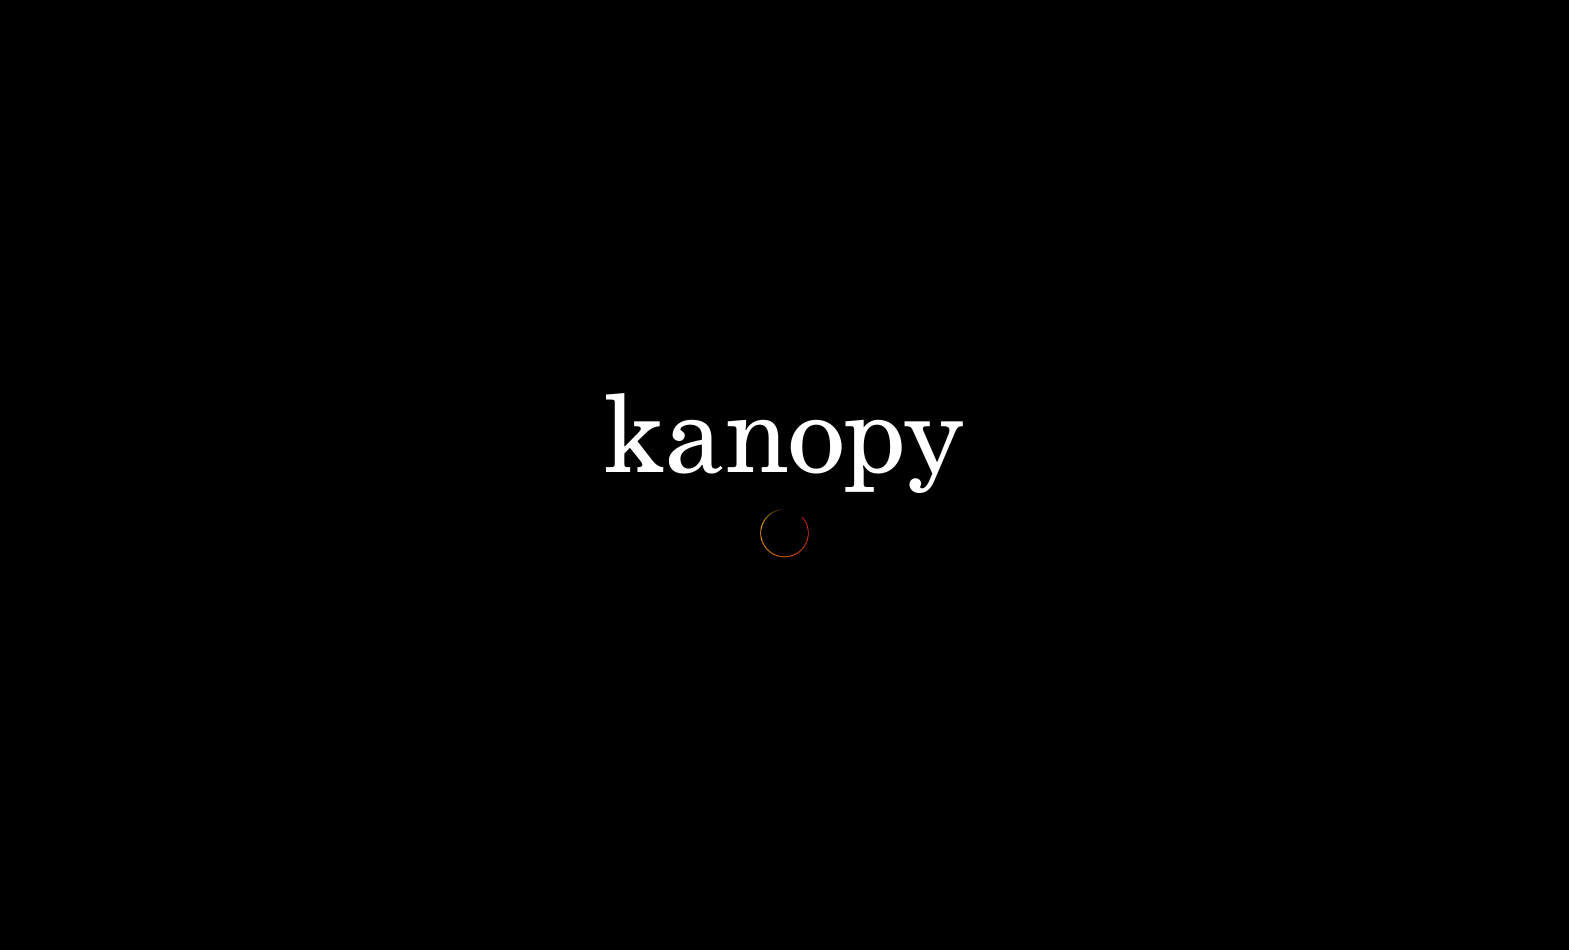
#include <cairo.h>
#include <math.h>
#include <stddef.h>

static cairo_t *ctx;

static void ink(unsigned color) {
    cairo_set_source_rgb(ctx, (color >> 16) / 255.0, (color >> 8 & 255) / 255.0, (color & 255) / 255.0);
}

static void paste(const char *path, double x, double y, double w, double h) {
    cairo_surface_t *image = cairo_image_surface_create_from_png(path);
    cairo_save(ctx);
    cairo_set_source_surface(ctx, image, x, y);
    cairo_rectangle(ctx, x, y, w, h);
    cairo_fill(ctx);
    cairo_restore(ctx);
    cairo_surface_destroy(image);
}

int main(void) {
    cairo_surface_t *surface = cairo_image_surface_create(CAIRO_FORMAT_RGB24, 1569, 950);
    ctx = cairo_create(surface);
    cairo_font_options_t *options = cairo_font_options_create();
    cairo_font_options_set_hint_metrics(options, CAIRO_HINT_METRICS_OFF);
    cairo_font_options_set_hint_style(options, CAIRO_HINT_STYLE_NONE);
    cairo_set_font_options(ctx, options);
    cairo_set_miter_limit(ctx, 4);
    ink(0x000000);
    cairo_paint(ctx);
    paste("pic1.png", 606, 393, 357, 100);
    paste("pic2.png", 760, 509, 49, 49);
    cairo_surface_write_to_png(surface, "screenshot.png");
    cairo_font_options_destroy(options);
    cairo_destroy(ctx);
    cairo_surface_destroy(surface);
    return 0;
}
